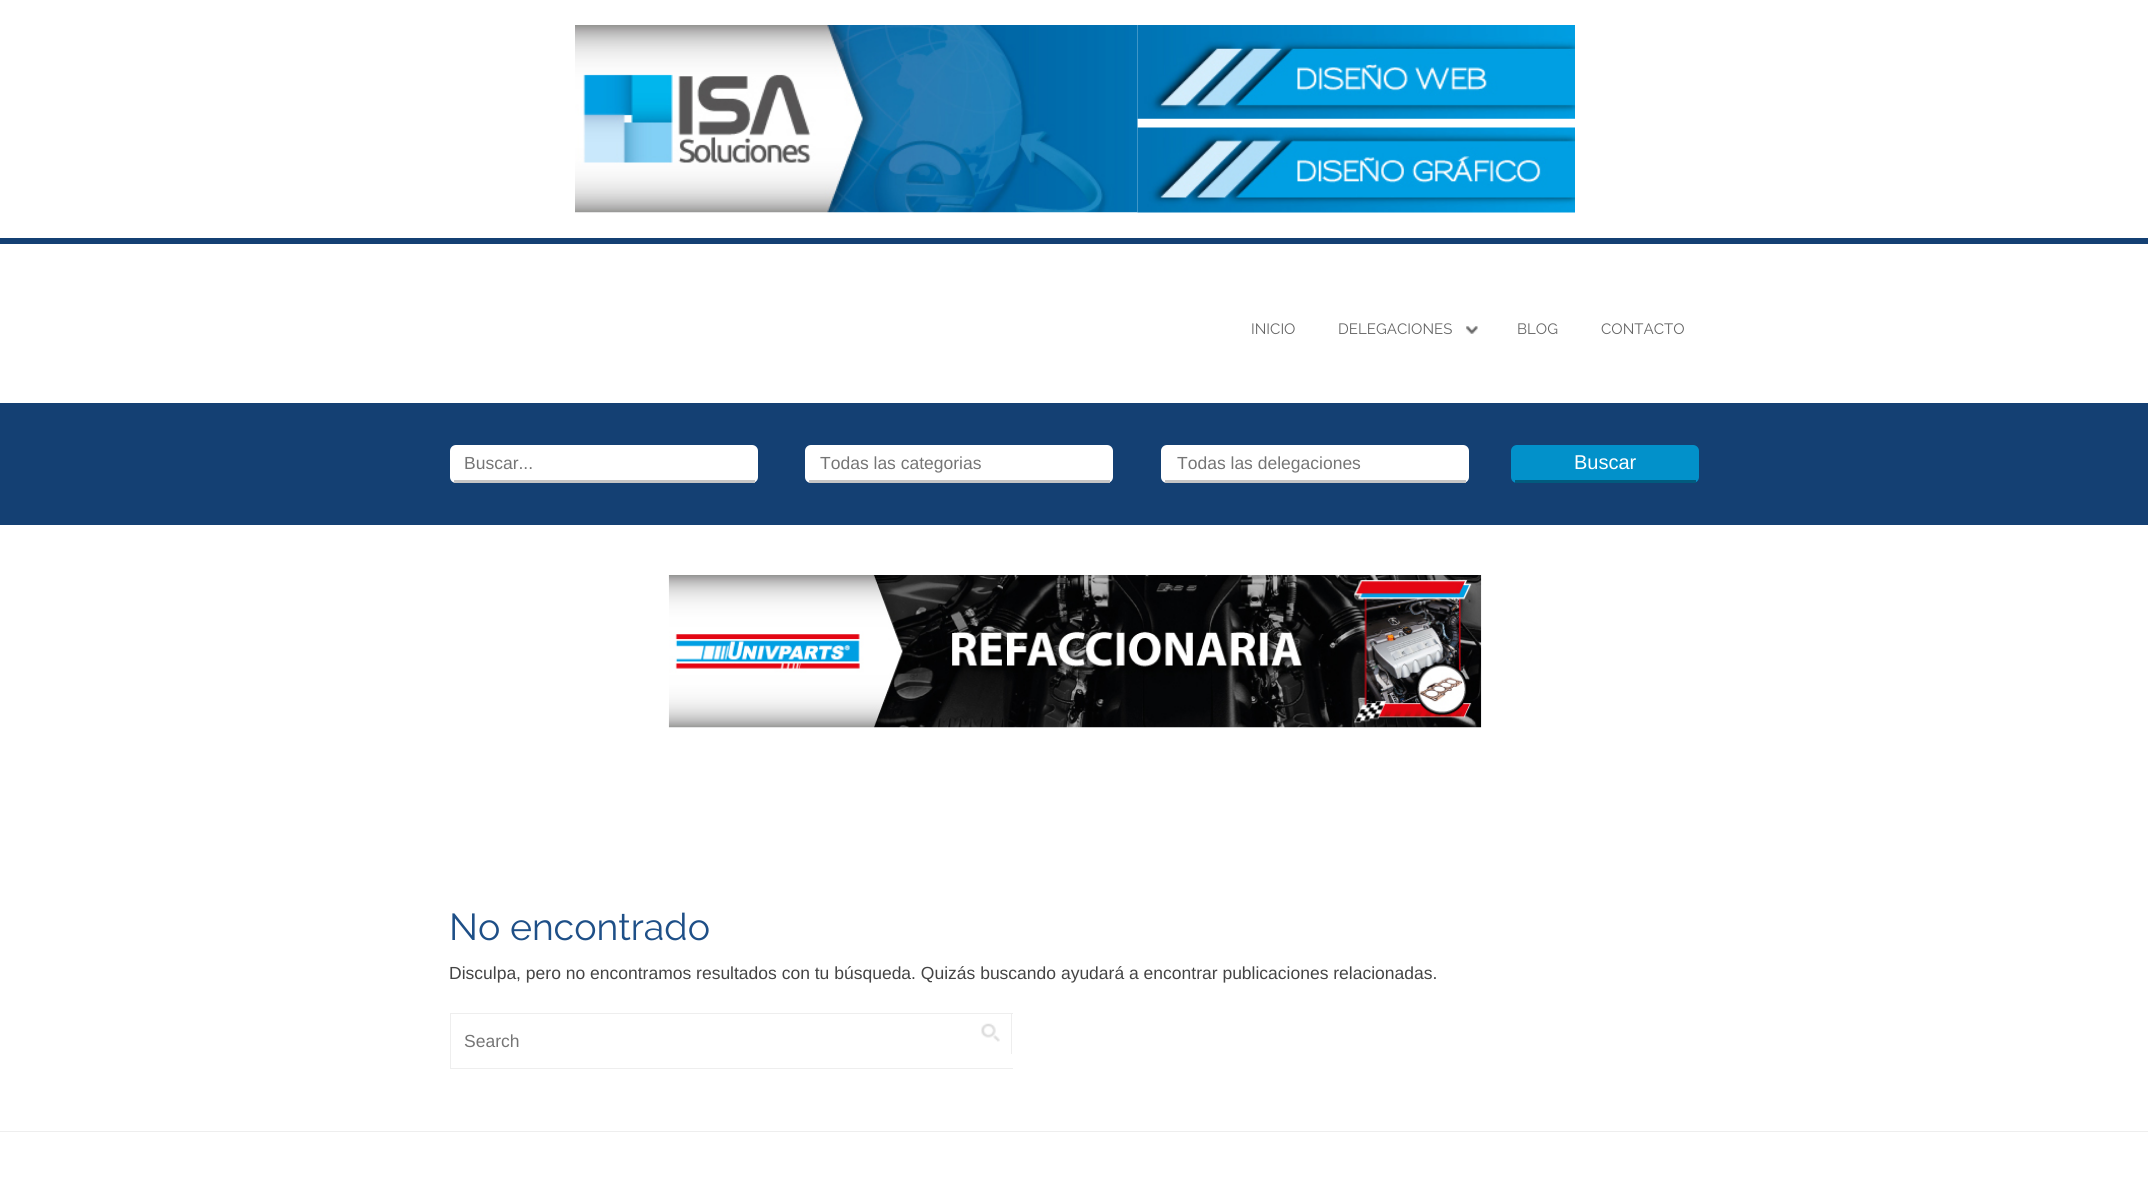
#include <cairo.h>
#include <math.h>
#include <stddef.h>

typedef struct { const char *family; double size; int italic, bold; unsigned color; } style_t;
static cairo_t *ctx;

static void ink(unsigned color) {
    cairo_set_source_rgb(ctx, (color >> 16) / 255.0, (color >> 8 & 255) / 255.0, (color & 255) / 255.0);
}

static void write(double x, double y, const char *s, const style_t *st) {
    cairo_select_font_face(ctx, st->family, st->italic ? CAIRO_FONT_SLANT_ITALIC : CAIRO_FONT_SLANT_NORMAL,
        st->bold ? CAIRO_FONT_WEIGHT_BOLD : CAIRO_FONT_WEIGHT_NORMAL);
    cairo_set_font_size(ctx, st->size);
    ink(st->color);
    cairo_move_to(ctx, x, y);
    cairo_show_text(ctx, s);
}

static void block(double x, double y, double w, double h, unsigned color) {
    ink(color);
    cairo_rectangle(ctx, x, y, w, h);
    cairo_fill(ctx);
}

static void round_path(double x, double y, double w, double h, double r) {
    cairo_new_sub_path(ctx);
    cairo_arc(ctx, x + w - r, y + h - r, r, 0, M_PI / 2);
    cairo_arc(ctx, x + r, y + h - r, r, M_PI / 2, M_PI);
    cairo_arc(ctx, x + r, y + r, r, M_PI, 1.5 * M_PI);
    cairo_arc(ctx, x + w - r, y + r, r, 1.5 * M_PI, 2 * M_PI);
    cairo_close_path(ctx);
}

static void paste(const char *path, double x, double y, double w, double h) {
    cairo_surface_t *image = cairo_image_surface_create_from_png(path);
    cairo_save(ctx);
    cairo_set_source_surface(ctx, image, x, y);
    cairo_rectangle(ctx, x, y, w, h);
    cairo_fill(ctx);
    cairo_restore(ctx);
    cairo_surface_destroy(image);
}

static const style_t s1 = {"Raleway", 15, 0, 0, 0x666666};
static const style_t s2 = {"Liberation Sans", 17.5, 0, 0, 0x757575};
static const style_t s3 = {"Liberation Sans", 20, 0, 0, 0xffffff};
static const style_t s4 = {"Raleway", 37.5, 0, 0, 0x1e4f87};
static const style_t s5 = {"Liberation Sans", 17.5, 0, 0, 0x444444};

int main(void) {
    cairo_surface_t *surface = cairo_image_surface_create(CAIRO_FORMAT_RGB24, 2148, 1181);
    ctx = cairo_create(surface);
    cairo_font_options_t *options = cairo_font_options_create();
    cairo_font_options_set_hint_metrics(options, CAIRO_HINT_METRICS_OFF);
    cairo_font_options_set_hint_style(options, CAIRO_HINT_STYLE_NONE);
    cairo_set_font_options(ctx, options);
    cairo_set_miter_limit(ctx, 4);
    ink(0xffffff);
    cairo_paint(ctx);
    paste("pic1.png", 575, 25, 563, 188);
    paste("pic2.png", 1137, 25, 438, 94);
    paste("pic3.png", 1137, 127, 438, 86);
    block(0, 238, 2148, 6, 0x144073);
    write(1251, 334, "INICIO", &s1);
    write(1338, 334, "DELEGACIONES", &s1);
    paste("pic4.png", 1466, 326, 12, 8);
    write(1517, 334, "BLOG", &s1);
    write(1601, 334, "CONTACTO", &s1);
    block(0, 403, 2148, 122, 0x144073);
    ink(0xffffff);
    round_path(450, 445, 308, 38, 6);
    cairo_fill(ctx);
    block(454, 480, 301, 3, 0xc4c4c4);
    write(464, 469, "Buscar...", &s2);
    ink(0xffffff);
    round_path(805, 445, 308, 38, 6);
    cairo_fill(ctx);
    block(809, 480, 301, 3, 0xc4c4c4);
    write(820, 469, "Todas las categorias", &s2);
    ink(0xffffff);
    round_path(1161, 445, 308, 38, 6);
    cairo_fill(ctx);
    block(1165, 480, 301, 3, 0xc4c4c4);
    write(1177, 469, "Todas las delegaciones", &s2);
    ink(0x0291ca);
    round_path(1511, 445, 188, 38, 6);
    cairo_fill(ctx);
    block(1515, 480, 181, 3, 0x015b7e);
    write(1574, 469, "Buscar", &s3);
    paste("pic5.png", 668, 575, 814, 153);
    write(449, 940, "No encontrado", &s4);
    write(449, 979, "Disculpa, pero no encontramos resultados con tu búsqueda. Quizás buscando ayudará a encontrar publicaciones relacionadas.", &s5);
    cairo_save(ctx);
    cairo_rectangle(ctx, 450, 1013, 563, 56);
    cairo_clip(ctx);
    cairo_rectangle(ctx, 450.5, 1013.5, 578, 55);
    ink(0xeeeeee);
    cairo_set_line_width(ctx, 1);
    cairo_stroke(ctx);
    cairo_restore(ctx);
    write(464, 1047, "Search", &s2);
    paste("pic6.png", 981, 1023, 19, 19);
    block(1011, 1013, 1, 41, 0xeeeeee);
    block(0, 1131, 2148, 1, 0xeeeeee);
    cairo_surface_write_to_png(surface, "screenshot.png");
    cairo_font_options_destroy(options);
    cairo_destroy(ctx);
    cairo_surface_destroy(surface);
    return 0;
}
